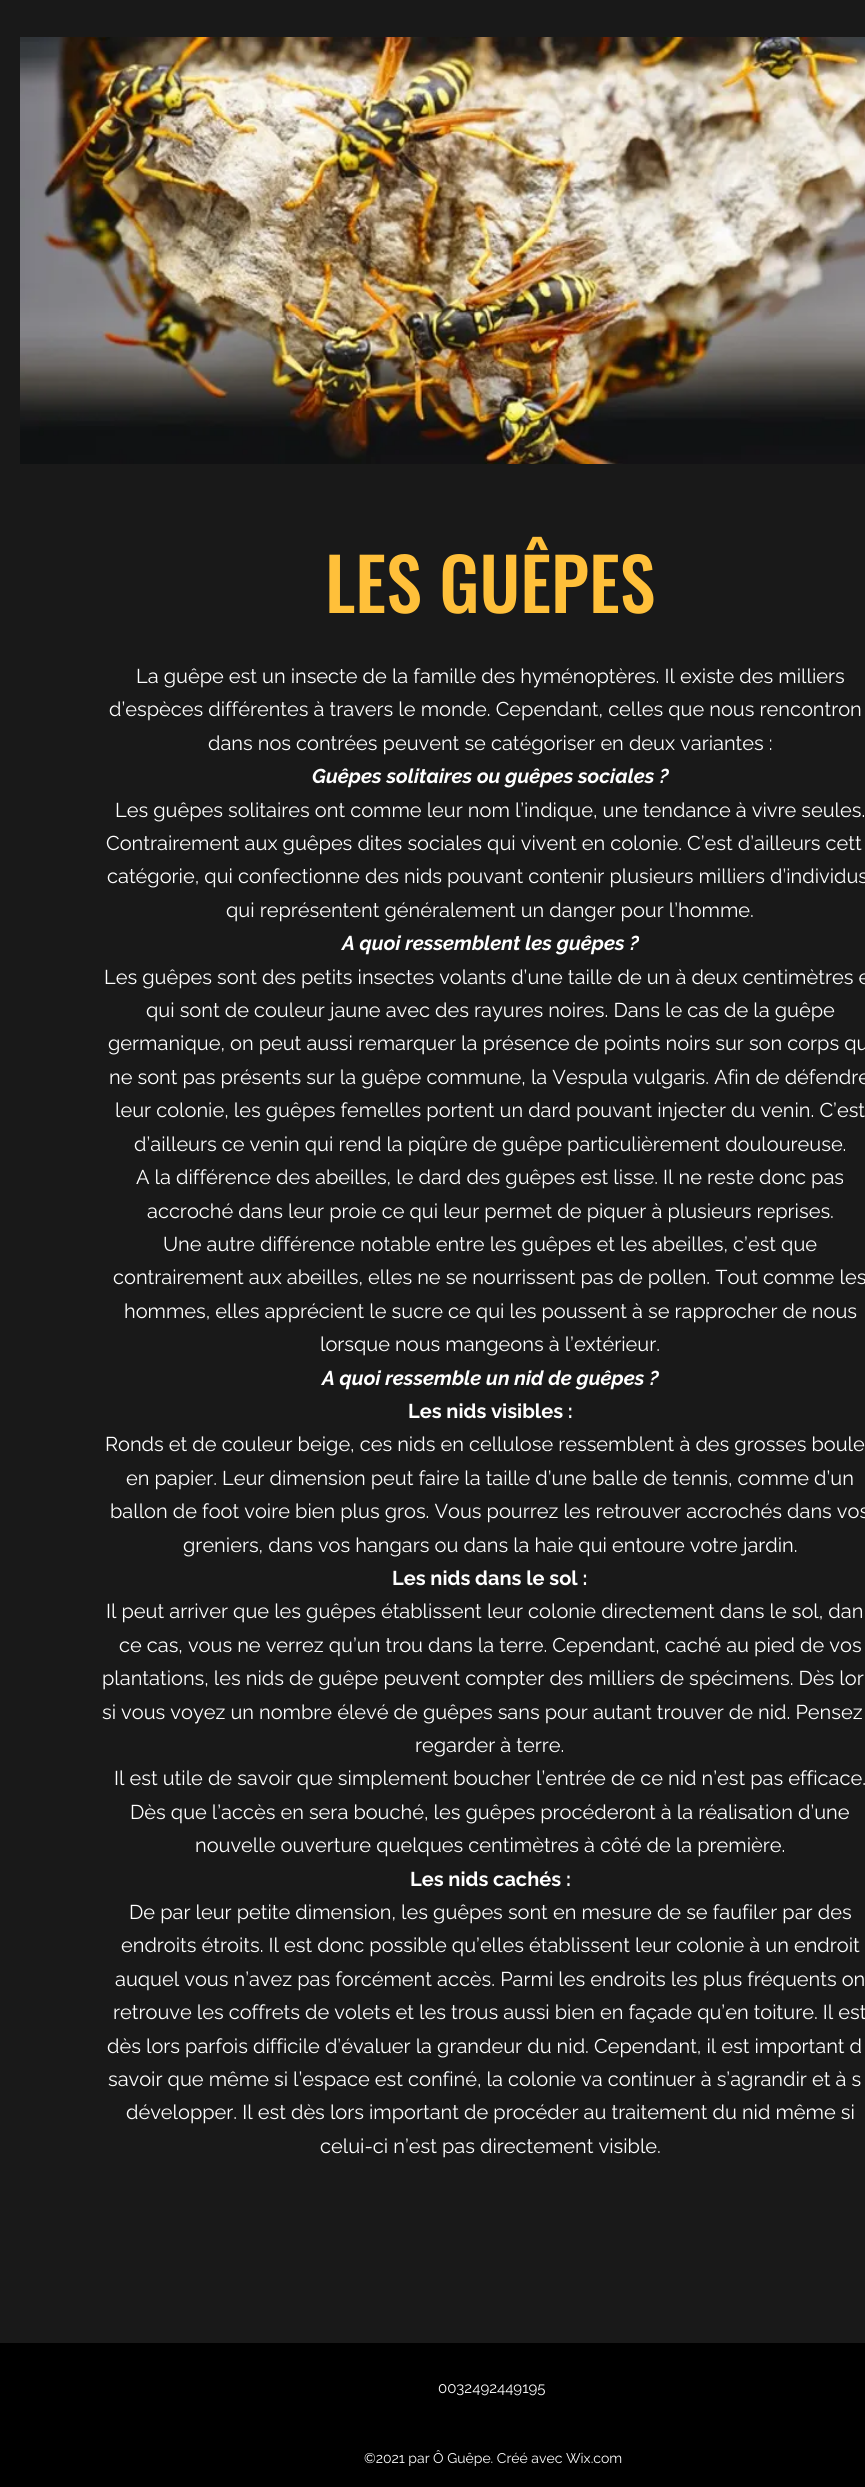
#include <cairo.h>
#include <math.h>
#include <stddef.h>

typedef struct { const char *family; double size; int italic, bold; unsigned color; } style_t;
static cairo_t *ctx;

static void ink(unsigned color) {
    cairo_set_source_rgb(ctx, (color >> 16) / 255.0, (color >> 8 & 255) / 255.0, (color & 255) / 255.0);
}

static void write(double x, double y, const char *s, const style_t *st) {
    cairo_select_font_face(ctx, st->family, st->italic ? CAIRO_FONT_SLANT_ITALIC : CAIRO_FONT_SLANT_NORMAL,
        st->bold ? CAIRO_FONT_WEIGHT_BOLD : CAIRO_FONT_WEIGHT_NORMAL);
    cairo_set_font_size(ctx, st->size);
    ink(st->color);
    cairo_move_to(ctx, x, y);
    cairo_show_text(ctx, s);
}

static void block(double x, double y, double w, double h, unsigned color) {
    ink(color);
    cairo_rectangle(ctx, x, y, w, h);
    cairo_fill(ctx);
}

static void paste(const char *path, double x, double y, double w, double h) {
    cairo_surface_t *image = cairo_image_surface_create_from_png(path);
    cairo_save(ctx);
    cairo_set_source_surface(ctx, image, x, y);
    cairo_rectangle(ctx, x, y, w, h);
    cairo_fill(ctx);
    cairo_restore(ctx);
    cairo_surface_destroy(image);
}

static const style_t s1 = {"Oswald Medium", 72, 0, 0, 0xffc03a};
static const style_t s2 = {"Raleway", 20, 0, 0, 0xffffff};
static const style_t s3 = {"Raleway", 20, 1, 1, 0xffffff};
static const style_t s4 = {"Raleway", 20, 0, 1, 0xffffff};
static const style_t s5 = {"Raleway", 15, 0, 0, 0xffffff};
static const style_t s6 = {"Raleway", 14, 0, 0, 0xffffff};

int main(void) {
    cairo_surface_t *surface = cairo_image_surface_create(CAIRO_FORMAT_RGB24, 865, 2487);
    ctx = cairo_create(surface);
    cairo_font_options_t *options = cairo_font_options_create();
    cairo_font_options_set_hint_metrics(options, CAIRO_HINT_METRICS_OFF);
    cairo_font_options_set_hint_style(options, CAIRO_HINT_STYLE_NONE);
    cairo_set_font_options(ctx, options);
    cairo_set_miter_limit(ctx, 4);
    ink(0x191919);
    cairo_paint(ctx);
    paste("pic1.png", 20, 37, 845, 427);
    write(325, 613, "LES GUÊPES", &s1);
    write(136, 683, "La guêpe est un insecte de la famille des hyménoptères. Il existe des milliers", &s2);
    write(109, 716, "d’espèces différentes à travers le monde. Cependant, celles que nous rencontron", &s2);
    write(208, 750, "dans nos contrées peuvent se catégoriser en deux variantes :", &s2);
    write(312, 783, "Guêpes solitaires ou guêpes sociales ?", &s3);
    write(115, 817, "Les guêpes solitaires ont comme leur nom l’indique, une tendance à vivre seules.", &s2);
    write(106, 850, "Contrairement aux guêpes dites sociales qui vivent en colonie. C’est d’ailleurs cett", &s2);
    write(107, 883, "catégorie, qui confectionne des nids pouvant contenir plusieurs milliers d’individus", &s2);
    write(226, 917, "qui représentent généralement un danger pour l’homme.", &s2);
    write(342, 950, "A quoi ressemblent les guêpes ?", &s3);
    write(104, 984, "Les guêpes sont des petits insectes volants d’une taille de un à deux centimètres e", &s2);
    write(146, 1017, "qui sont de couleur jaune avec des rayures noires. Dans le cas de la guêpe", &s2);
    write(108, 1050, "germanique, on peut aussi remarquer la présence de points noirs sur son corps qu", &s2);
    write(109, 1084, "ne sont pas présents sur la guêpe commune, la Vespula vulgaris. Afin de défendre", &s2);
    write(115, 1117, "leur colonie, les guêpes femelles portent un dard pouvant injecter du venin. C’est", &s2);
    write(134, 1151, "d’ailleurs ce venin qui rend la piqûre de guêpe particulièrement douloureuse.", &s2);
    write(136, 1184, "A la différence des abeilles, le dard des guêpes est lisse. Il ne reste donc pas", &s2);
    write(147, 1218, "accroché dans leur proie ce qui leur permet de piquer à plusieurs reprises.", &s2);
    write(163, 1251, "Une autre différence notable entre les guêpes et les abeilles, c’est que", &s2);
    write(113, 1284, "contrairement aux abeilles, elles ne se nourrissent pas de pollen. Tout comme les", &s2);
    write(124, 1318, "hommes, elles apprécient le sucre ce qui les poussent à se rapprocher de nous", &s2);
    write(320, 1351, "lorsque nous mangeons à l’extérieur.", &s2);
    write(322, 1385, "A quoi ressemble un nid de guêpes ?", &s3);
    write(408, 1418, "Les nids visibles :", &s4);
    write(105, 1451, "Ronds et de couleur beige, ces nids en cellulose ressemblent à des grosses boule", &s2);
    write(126, 1485, "en papier. Leur dimension peut faire la taille d’une balle de tennis, comme d’un", &s2);
    write(110, 1518, "ballon de foot voire bien plus gros. Vous pourrez les retrouver accrochés dans vos", &s2);
    write(183, 1552, "greniers, dans vos hangars ou dans la haie qui entoure votre jardin.", &s2);
    write(392, 1585, "Les nids dans le sol :", &s4);
    write(106, 1618, "Il peut arriver que les guêpes établissent leur colonie directement dans le sol, dan", &s2);
    write(119, 1652, "ce cas, vous ne verrez qu’un trou dans la terre. Cependant, caché au pied de vos", &s2);
    write(102, 1685, "plantations, les nids de guêpe peuvent compter des milliers de spécimens. Dès lor", &s2);
    write(102, 1719, "si vous voyez un nombre élevé de guêpes sans pour autant trouver de nid. Pensez", &s2);
    write(415, 1752, "regarder à terre.", &s2);
    write(114, 1785, "Il est utile de savoir que simplement boucher l’entrée de ce nid n’est pas efficace.", &s2);
    write(130, 1819, "Dès que l’accès en sera bouché, les guêpes procéderont à la réalisation d’une", &s2);
    write(195, 1852, "nouvelle ouverture quelques centimètres à côté de la première.", &s2);
    write(410, 1886, "Les nids cachés :", &s4);
    write(129, 1919, "De par leur petite dimension, les guêpes sont en mesure de se faufiler par des", &s2);
    write(121, 1952, "endroits étroits. Il est donc possible qu’elles établissent leur colonie à un endroit", &s2);
    write(115, 1986, "auquel vous n’avez pas forcément accès. Parmi les endroits les plus fréquents on", &s2);
    write(113, 2019, "retrouve les coffrets de volets et les trous aussi bien en façade qu’en toiture. Il est", &s2);
    write(107, 2053, "dès lors parfois difficile d’évaluer la grandeur du nid. Cependant, il est important d", &s2);
    write(108, 2086, "savoir que même si l’espace est confiné, la colonie va continuer à s’agrandir et à s", &s2);
    write(126, 2119, "développer. Il est dès lors important de procéder au traitement du nid même si", &s2);
    write(320, 2153, "celui-ci n’est pas directement visible.", &s2);
    block(0, 2343, 865, 144, 0x000000);
    write(438, 2393, "0032492449195", &s5);
    write(364, 2463, "©2021 par Ô Guêpe. Créé avec Wix.com", &s6);
    cairo_surface_write_to_png(surface, "screenshot.png");
    cairo_font_options_destroy(options);
    cairo_destroy(ctx);
    cairo_surface_destroy(surface);
    return 0;
}
